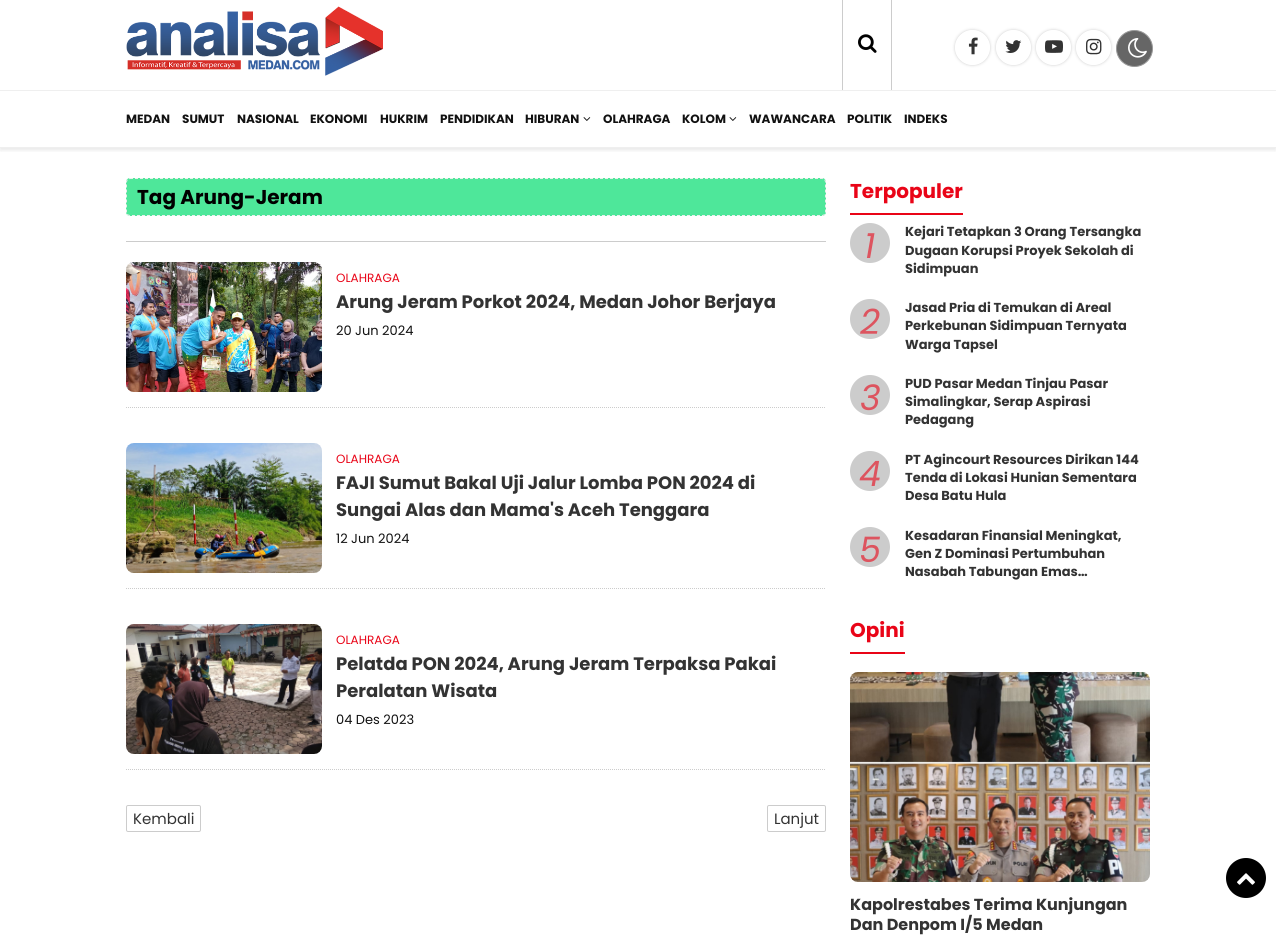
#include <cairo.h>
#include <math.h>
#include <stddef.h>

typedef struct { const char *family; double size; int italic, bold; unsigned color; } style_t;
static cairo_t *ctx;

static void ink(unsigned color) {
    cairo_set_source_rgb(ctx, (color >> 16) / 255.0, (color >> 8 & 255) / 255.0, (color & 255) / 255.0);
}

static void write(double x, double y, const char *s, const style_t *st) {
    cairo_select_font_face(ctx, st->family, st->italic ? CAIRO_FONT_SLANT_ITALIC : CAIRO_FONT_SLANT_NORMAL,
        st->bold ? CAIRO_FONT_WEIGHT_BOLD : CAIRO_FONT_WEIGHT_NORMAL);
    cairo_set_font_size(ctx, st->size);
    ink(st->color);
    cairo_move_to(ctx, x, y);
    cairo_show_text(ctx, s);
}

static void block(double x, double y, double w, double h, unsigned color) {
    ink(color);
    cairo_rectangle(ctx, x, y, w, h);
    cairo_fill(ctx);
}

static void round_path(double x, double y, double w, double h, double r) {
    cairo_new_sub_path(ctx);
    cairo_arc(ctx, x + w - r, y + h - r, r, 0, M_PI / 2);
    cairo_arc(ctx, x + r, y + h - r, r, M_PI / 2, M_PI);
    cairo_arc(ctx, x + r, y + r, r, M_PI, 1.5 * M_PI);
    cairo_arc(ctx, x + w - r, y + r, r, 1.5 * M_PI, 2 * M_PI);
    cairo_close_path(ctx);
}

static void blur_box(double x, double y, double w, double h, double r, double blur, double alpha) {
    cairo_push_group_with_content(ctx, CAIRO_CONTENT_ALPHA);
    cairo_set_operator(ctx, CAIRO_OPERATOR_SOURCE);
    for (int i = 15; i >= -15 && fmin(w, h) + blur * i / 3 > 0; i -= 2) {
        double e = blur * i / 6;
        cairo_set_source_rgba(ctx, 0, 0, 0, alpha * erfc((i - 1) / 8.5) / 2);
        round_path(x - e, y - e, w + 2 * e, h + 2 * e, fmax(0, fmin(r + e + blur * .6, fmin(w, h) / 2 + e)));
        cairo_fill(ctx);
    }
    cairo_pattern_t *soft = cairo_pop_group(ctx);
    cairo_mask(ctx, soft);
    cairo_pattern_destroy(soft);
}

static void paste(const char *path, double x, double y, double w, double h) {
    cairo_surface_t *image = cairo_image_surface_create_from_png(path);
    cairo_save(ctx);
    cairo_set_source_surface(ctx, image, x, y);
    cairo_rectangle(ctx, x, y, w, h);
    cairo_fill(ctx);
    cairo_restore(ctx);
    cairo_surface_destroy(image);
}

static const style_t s1 = {"Poppins", 12, 0, 1, 0x111111};
static const style_t s2 = {"Poppins", 20, 0, 1, 0x000000};
static const style_t s3 = {"Poppins", 12, 0, 0, 0xe90417};
static const style_t s4 = {"Poppins", 18, 0, 1, 0x333333};
static const style_t s5 = {"Poppins", 13, 0, 0, 0x111111};
static const style_t s6 = {"Poppins", 15, 0, 0, 0x333333};
static const style_t s7 = {"Poppins", 20, 0, 1, 0xe90417};
static const style_t s8 = {"Poppins", 35, 1, 0, 0xdd545f};
static const style_t s9 = {"Poppins", 13, 0, 1, 0x333333};
static const style_t s10 = {"Poppins", 16, 0, 1, 0x333333};

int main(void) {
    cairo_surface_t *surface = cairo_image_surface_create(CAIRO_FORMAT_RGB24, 1276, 948);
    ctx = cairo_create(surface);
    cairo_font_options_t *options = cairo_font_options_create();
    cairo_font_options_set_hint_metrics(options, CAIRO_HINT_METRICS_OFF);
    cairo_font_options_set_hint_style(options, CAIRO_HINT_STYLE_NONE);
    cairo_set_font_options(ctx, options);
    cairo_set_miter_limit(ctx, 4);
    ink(0xffffff);
    cairo_paint(ctx);
    block(0, 90, 1276, 1, 0xefefef);
    paste("pic1.png", 126, 6, 257, 70);
    block(842, 0, 1, 90, 0xcccccc);
    block(891, 0, 1, 90, 0xcccccc);
    paste("pic2.png", 858, 34, 19, 19);
    cairo_save(ctx);
    cairo_set_fill_rule(ctx, CAIRO_FILL_RULE_EVEN_ODD);
    cairo_new_path(ctx);
    cairo_move_to(ctx, 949, 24);
    cairo_line_to(ctx, 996, 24);
    cairo_line_to(ctx, 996, 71);
    cairo_line_to(ctx, 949, 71);
    cairo_close_path(ctx);
    cairo_move_to(ctx, 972.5, 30);
    cairo_curve_to(ctx, 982, 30, 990, 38, 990, 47.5);
    cairo_curve_to(ctx, 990, 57, 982, 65, 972.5, 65);
    cairo_curve_to(ctx, 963, 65, 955, 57, 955, 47.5);
    cairo_curve_to(ctx, 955, 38, 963, 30, 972.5, 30);
    cairo_close_path(ctx);
    cairo_clip(ctx);
    ink(0xcccccc);
    blur_box(955, 30, 35, 35, 17.5, 1.5, 1);
    cairo_restore(ctx);
    paste("pic3.png", 968, 37, 10, 18);
    cairo_save(ctx);
    cairo_set_fill_rule(ctx, CAIRO_FILL_RULE_EVEN_ODD);
    cairo_new_path(ctx);
    cairo_move_to(ctx, 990, 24);
    cairo_line_to(ctx, 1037, 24);
    cairo_line_to(ctx, 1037, 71);
    cairo_line_to(ctx, 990, 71);
    cairo_close_path(ctx);
    cairo_move_to(ctx, 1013.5, 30);
    cairo_curve_to(ctx, 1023, 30, 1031, 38, 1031, 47.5);
    cairo_curve_to(ctx, 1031, 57, 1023, 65, 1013.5, 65);
    cairo_curve_to(ctx, 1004, 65, 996, 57, 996, 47.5);
    cairo_curve_to(ctx, 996, 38, 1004, 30, 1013.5, 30);
    cairo_close_path(ctx);
    cairo_clip(ctx);
    ink(0xcccccc);
    blur_box(996, 30, 35, 35, 17.5, 1.5, 1);
    cairo_restore(ctx);
    paste("pic4.png", 1005, 40, 17, 13);
    cairo_save(ctx);
    cairo_set_fill_rule(ctx, CAIRO_FILL_RULE_EVEN_ODD);
    cairo_new_path(ctx);
    cairo_move_to(ctx, 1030, 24);
    cairo_line_to(ctx, 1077, 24);
    cairo_line_to(ctx, 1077, 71);
    cairo_line_to(ctx, 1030, 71);
    cairo_close_path(ctx);
    cairo_move_to(ctx, 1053.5, 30);
    cairo_curve_to(ctx, 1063, 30, 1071, 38, 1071, 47.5);
    cairo_curve_to(ctx, 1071, 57, 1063, 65, 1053.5, 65);
    cairo_curve_to(ctx, 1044, 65, 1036, 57, 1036, 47.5);
    cairo_curve_to(ctx, 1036, 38, 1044, 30, 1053.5, 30);
    cairo_close_path(ctx);
    cairo_clip(ctx);
    ink(0xcccccc);
    blur_box(1036, 30, 35, 35, 17.5, 1.5, 1);
    cairo_restore(ctx);
    paste("pic5.png", 1045, 40, 18, 13);
    cairo_save(ctx);
    cairo_set_fill_rule(ctx, CAIRO_FILL_RULE_EVEN_ODD);
    cairo_new_path(ctx);
    cairo_move_to(ctx, 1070, 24);
    cairo_line_to(ctx, 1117, 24);
    cairo_line_to(ctx, 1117, 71);
    cairo_line_to(ctx, 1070, 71);
    cairo_close_path(ctx);
    cairo_move_to(ctx, 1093.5, 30);
    cairo_curve_to(ctx, 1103, 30, 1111, 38, 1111, 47.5);
    cairo_curve_to(ctx, 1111, 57, 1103, 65, 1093.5, 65);
    cairo_curve_to(ctx, 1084, 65, 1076, 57, 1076, 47.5);
    cairo_curve_to(ctx, 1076, 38, 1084, 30, 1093.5, 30);
    cairo_close_path(ctx);
    cairo_clip(ctx);
    ink(0xcccccc);
    blur_box(1076, 30, 35, 35, 17.5, 1.5, 1);
    cairo_restore(ctx);
    paste("pic6.png", 1086, 38, 16, 17);
    ink(0x666666);
    cairo_arc(ctx, 1134.5, 48.5, 18, 0, 2 * M_PI);
    cairo_fill_preserve(ctx);
    ink(0x999999);
    cairo_set_line_width(ctx, 1);
    cairo_stroke(ctx);
    paste("pic7.png", 1128, 38, 19, 20);
    cairo_save(ctx);
    cairo_rectangle(ctx, 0, 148, 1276, 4);
    cairo_clip(ctx);
    ink(0x000000);
    blur_box(0, 93, 1276, 57, 0, 2.5, 0.1);
    cairo_restore(ctx);
    block(0, 147, 1276, 1, 0xefefef);
    write(126, 123, "MEDAN", &s1);
    write(182, 123, "SUMUT", &s1);
    write(237, 123, "NASIONAL", &s1);
    write(310, 123, "EKONOMI", &s1);
    write(380, 123, "HUKRIM", &s1);
    write(440, 123, "PENDIDIKAN", &s1);
    write(525, 123, "HIBURAN", &s1);
    paste("pic8.png", 583, 117, 8, 4);
    write(603, 123, "OLAHRAGA", &s1);
    write(682, 123, "KOLOM", &s1);
    paste("pic8.png", 729, 117, 8, 4);
    write(749, 123, "WAWANCARA", &s1);
    write(847, 123, "POLITIK", &s1);
    write(904, 123, "INDEKS", &s1);
    ink(0x4ee79a);
    round_path(126, 178, 700, 38, 4);
    cairo_fill(ctx);
    cairo_new_path(ctx);
    cairo_move_to(ctx, 130, 178.5);
    cairo_line_to(ctx, 822, 178.5);
    cairo_curve_to(ctx, 824, 178.5, 825.5, 180, 825.5, 182);
    cairo_line_to(ctx, 825.5, 212);
    cairo_curve_to(ctx, 825.5, 214, 824, 215.5, 822, 215.5);
    cairo_line_to(ctx, 130, 215.5);
    cairo_curve_to(ctx, 128, 215.5, 126.5, 214, 126.5, 212);
    cairo_line_to(ctx, 126.5, 182);
    cairo_curve_to(ctx, 126.5, 180, 128, 178.5, 130, 178.5);
    cairo_close_path(ctx);
    ink(0xededed);
    cairo_set_dash(ctx, (double[]){3, 2}, 2, 0);
    cairo_stroke(ctx);
    write(137, 204, "Tag Arung-Jeram", &s2);
    block(126, 241, 700, 1, 0xcccccc);
    cairo_new_path(ctx);
    cairo_move_to(ctx, 126, 407.5);
    cairo_line_to(ctx, 826, 407.5);
    cairo_set_dash(ctx, (double[]){1, 1}, 2, 0);
    cairo_stroke(ctx);
    paste("pic9.png", 126, 262, 196, 130);
    write(336, 282, "OLAHRAGA", &s3);
    write(336, 308, "Arung Jeram Porkot 2024, Medan Johor Berjaya", &s4);
    write(336, 335, "20 Jun 2024", &s5);
    cairo_new_path(ctx);
    cairo_move_to(ctx, 126, 588.5);
    cairo_line_to(ctx, 826, 588.5);
    ink(0xcccccc);
    cairo_stroke(ctx);
    paste("pic10.png", 126, 443, 196, 130);
    write(336, 463, "OLAHRAGA", &s3);
    write(336, 489, "FAJI Sumut Bakal Uji Jalur Lomba PON 2024 di", &s4);
    write(336, 516, "Sungai Alas dan Mama's Aceh Tenggara", &s4);
    write(336, 543, "12 Jun 2024", &s5);
    cairo_new_path(ctx);
    cairo_move_to(ctx, 126, 769.5);
    cairo_line_to(ctx, 826, 769.5);
    ink(0xcccccc);
    cairo_stroke(ctx);
    paste("pic11.png", 126, 624, 196, 130);
    write(336, 644, "OLAHRAGA", &s3);
    write(336, 670, "Pelatda PON 2024, Arung Jeram Terpaksa Pakai", &s4);
    write(336, 697, "Peralatan Wisata", &s4);
    write(336, 724, "04 Des 2023", &s5);
    round_path(126.5, 805.5, 74, 26, 1.5);
    ink(0xcccccc);
    cairo_set_dash(ctx, NULL, 0, 0);
    cairo_stroke(ctx);
    write(133, 824, "Kembali", &s6);
    round_path(767.5, 805.5, 58, 26, 1.5);
    ink(0xcccccc);
    cairo_stroke(ctx);
    write(774, 824, "Lanjut", &s6);
    block(850, 213, 113, 2, 0xe90417);
    write(850, 198, "Terpopuler", &s7);
    ink(0xcccccc);
    cairo_new_path(ctx);
    cairo_arc(ctx, 870, 243, 20, 0, 2 * M_PI);
    cairo_fill(ctx);
    write(864, 258, "1", &s8);
    write(905, 236, "Kejari Tetapkan 3 Orang Tersangka", &s9);
    write(905, 255, "Dugaan Korupsi Proyek Sekolah di", &s9);
    write(905, 273, "Sidimpuan", &s9);
    ink(0xcccccc);
    cairo_new_path(ctx);
    cairo_arc(ctx, 870, 319, 20, 0, 2 * M_PI);
    cairo_fill(ctx);
    write(860, 334, "2", &s8);
    write(905, 312, "Jasad Pria di Temukan di Areal", &s9);
    write(905, 330, "Perkebunan Sidimpuan Ternyata", &s9);
    write(905, 349, "Warga Tapsel", &s9);
    ink(0xcccccc);
    cairo_new_path(ctx);
    cairo_arc(ctx, 870, 395, 20, 0, 2 * M_PI);
    cairo_fill(ctx);
    write(860, 410, "3", &s8);
    write(905, 388, "PUD Pasar Medan Tinjau Pasar", &s9);
    write(905, 406, "Simalingkar, Serap Aspirasi", &s9);
    write(905, 424, "Pedagang", &s9);
    ink(0xcccccc);
    cairo_new_path(ctx);
    cairo_arc(ctx, 870, 471, 20, 0, 2 * M_PI);
    cairo_fill(ctx);
    write(859, 486, "4", &s8);
    write(905, 464, "PT Agincourt Resources Dirikan 144", &s9);
    write(905, 482, "Tenda di Lokasi Hunian Sementara", &s9);
    write(905, 500, "Desa Batu Hula", &s9);
    ink(0xcccccc);
    cairo_new_path(ctx);
    cairo_arc(ctx, 870, 547, 20, 0, 2 * M_PI);
    cairo_fill(ctx);
    write(859, 562, "5", &s8);
    write(905, 540, "Kesadaran Finansial Meningkat,", &s9);
    write(905, 558, "Gen Z Dominasi Pertumbuhan", &s9);
    write(905, 576, "Nasabah Tabungan Emas…", &s9);
    block(850, 652, 55, 2, 0xe90417);
    write(850, 637, "Opini", &s7);
    paste("pic12.png", 850, 672, 300, 210);
    write(850, 910, "Kapolrestabes Terima Kunjungan", &s10);
    write(850, 930, "Dan Denpom I/5 Medan", &s10);
    ink(0x000000);
    cairo_new_path(ctx);
    cairo_arc(ctx, 1246, 878, 20, 0, 2 * M_PI);
    cairo_fill(ctx);
    paste("pic13.png", 1237, 873, 18, 12);
    cairo_surface_write_to_png(surface, "screenshot.png");
    cairo_font_options_destroy(options);
    cairo_destroy(ctx);
    cairo_surface_destroy(surface);
    return 0;
}
